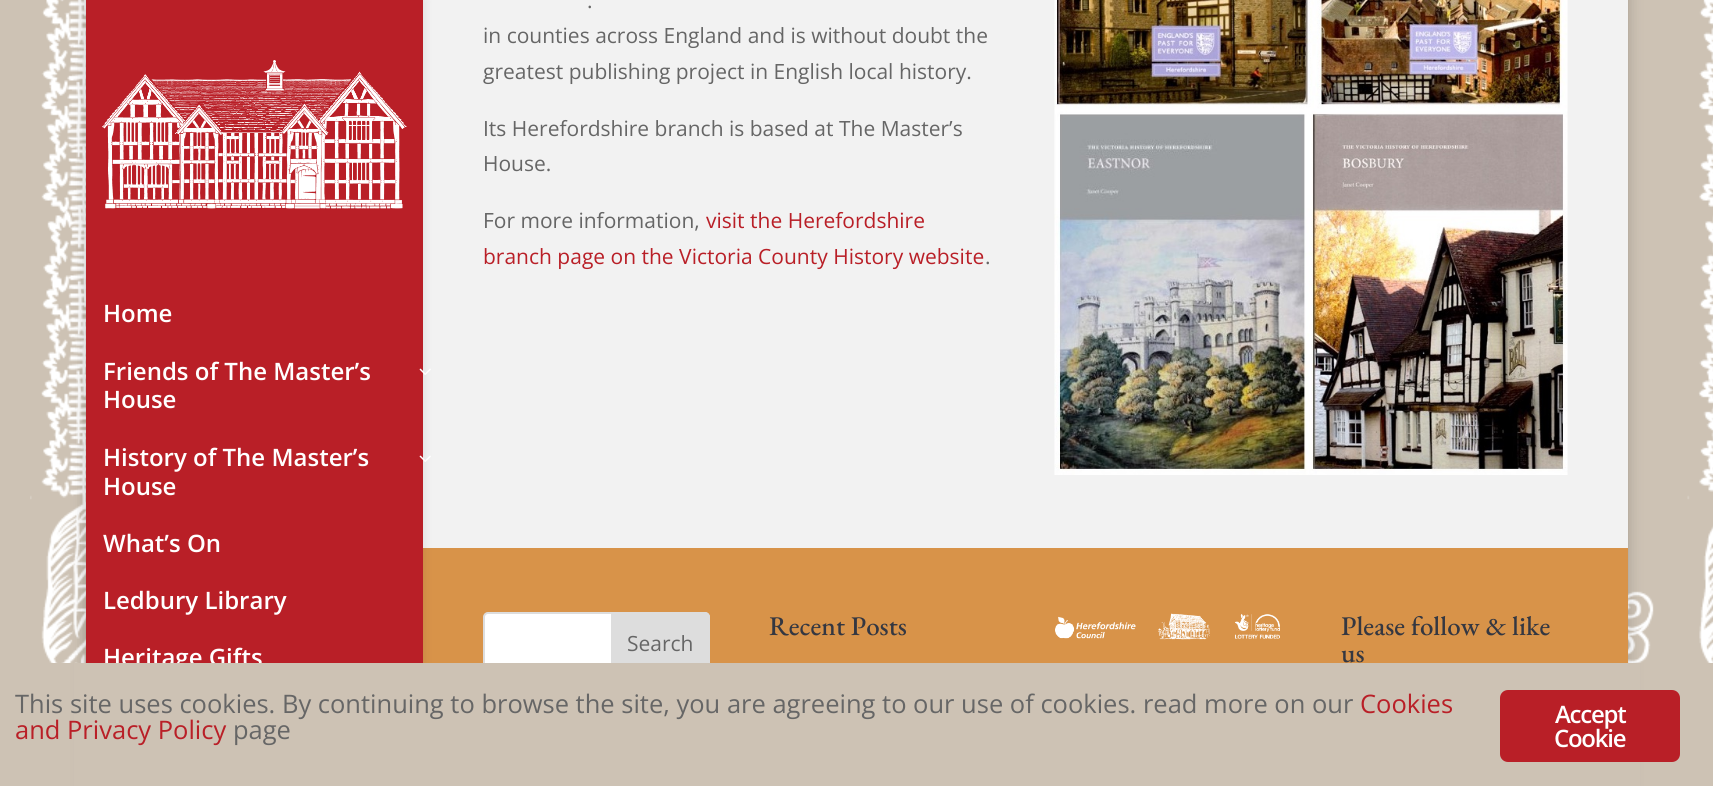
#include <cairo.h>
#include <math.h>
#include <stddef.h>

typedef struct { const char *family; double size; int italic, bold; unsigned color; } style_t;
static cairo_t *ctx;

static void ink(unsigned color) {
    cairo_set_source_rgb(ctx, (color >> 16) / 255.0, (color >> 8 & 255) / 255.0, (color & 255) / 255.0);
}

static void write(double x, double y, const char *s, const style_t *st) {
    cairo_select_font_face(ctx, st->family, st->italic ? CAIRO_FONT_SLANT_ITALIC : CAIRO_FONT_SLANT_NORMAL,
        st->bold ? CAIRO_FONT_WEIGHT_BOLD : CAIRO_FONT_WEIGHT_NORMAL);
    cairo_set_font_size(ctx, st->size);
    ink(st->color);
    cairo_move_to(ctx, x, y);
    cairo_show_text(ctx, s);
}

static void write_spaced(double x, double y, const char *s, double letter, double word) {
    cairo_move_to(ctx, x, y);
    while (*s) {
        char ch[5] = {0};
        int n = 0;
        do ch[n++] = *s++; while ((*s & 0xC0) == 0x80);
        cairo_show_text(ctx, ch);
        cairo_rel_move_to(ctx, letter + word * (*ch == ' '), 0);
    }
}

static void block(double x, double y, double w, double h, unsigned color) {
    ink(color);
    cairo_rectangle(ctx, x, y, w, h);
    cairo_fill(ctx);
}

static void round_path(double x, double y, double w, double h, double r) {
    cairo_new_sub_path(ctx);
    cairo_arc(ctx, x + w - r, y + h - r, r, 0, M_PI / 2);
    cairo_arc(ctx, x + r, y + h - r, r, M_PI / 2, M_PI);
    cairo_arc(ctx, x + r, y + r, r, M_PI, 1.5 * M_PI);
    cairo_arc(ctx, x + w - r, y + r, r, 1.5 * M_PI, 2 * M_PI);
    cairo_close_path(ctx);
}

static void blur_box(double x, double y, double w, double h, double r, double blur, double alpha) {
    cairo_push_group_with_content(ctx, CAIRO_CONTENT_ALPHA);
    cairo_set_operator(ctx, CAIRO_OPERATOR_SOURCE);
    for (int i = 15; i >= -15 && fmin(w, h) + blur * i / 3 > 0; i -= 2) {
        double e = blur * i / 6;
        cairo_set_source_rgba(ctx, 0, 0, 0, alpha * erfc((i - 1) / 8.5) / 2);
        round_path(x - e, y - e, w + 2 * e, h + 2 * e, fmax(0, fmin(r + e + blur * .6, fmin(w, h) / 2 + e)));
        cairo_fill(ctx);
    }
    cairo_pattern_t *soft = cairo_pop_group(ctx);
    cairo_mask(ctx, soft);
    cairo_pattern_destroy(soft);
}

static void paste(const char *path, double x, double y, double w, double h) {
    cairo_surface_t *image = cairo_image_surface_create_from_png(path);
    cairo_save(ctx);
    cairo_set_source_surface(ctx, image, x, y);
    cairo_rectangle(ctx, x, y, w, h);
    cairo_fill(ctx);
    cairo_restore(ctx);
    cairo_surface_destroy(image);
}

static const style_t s1 = {"Open Sans SemiBold", 24, 0, 0, 0xffffff};
static const style_t s2 = {"Open Sans", 21, 0, 0, 0x666666};
static const style_t s3 = {"Open Sans", 21, 0, 0, 0xb91f27};
static const style_t s4 = {"EB Garamond Medium", 27, 0, 0, 0x343741};
static const style_t s5 = {"Open Sans", 25.5, 0, 0, 0x666666};
static const style_t s6 = {"Open Sans", 25.5, 0, 0, 0xb91f27};

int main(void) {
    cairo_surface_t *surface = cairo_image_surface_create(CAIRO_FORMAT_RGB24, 1713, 786);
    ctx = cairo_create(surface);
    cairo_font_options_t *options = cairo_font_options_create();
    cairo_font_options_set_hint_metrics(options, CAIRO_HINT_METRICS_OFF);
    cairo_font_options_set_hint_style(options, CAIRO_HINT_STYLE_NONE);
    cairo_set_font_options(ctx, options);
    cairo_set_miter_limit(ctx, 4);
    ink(0xcdc2b4);
    cairo_paint(ctx);
    paste("pic1.png", 30, 0, 1683, 663);
    ink(0x000000);
    blur_box(86, -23, 1542, 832, 0, 7.5, 0.2);
    block(423, 0, 1205, 548, 0xf2f2f2);
    block(423, 548, 1205, 115, 0xd89349);
    ink(0x000000);
    blur_box(86, 0, 337, 786, 0, 5, 0.1);
    block(86, 0, 337, 663, 0xb91f27);
    paste("pic2.png", 102, 60, 305, 149);
    write(103, 322, "Home", &s1);
    write(103, 380, "Friends of The Master’s", &s1);
    paste("pic3.png", 419, 368, 12, 7);
    write(103, 408, "House", &s1);
    write(103, 466, "History of The Master’s", &s1);
    paste("pic3.png", 419, 455, 12, 7);
    write(103, 495, "House", &s1);
    write(103, 552, "What’s On", &s1);
    write(103, 609, "Ledbury Library", &s1);
    write(103, 666, "Heritage Gifts", &s1);
    write(587, 8, ".", &s2);
    write(483, 43, "in counties across England and is without doubt the", &s2);
    write(483, 79, "greatest publishing project in English local history.", &s2);
    write(483, 136, "Its Herefordshire branch is based at The Master’s", &s2);
    write(483, 171, "House.", &s2);
    write(483, 228, "For more information,", &s2);
    write(706, 228, "visit the Herefordshire", &s3);
    write(483, 264, "branch page on the Victoria County History website", &s3);
    write(985, 264, ".", &s2);
    paste("pic4.png", 1054, 0, 514, 475);
    write(769, 635, "Recent Posts", &s4);
    paste("pic5.png", 1055, 613, 225, 27);
    write(1341, 635, "Please follow & like", &s4);
    write(1341, 662, "us", &s4);
    ink(0xffffff);
    round_path(484, 613, 225, 58, 4);
    cairo_fill_preserve(ctx);
    ink(0xdddddd);
    cairo_stroke(ctx);
    cairo_new_path(ctx);
    cairo_move_to(ctx, 612, 613);
    cairo_line_to(ctx, 705, 613);
    cairo_curve_to(ctx, 707, 613, 709, 615, 709, 617);
    cairo_line_to(ctx, 709, 667);
    cairo_curve_to(ctx, 709, 669, 707, 671, 705, 671);
    cairo_line_to(ctx, 612, 671);
    cairo_close_path(ctx);
    cairo_fill_preserve(ctx);
    cairo_stroke(ctx);
    write(627, 651, "Search", &s2);
    block(74, 663, 1566, 123, 0xcdc2b4);
    write(15, 713, "This site uses cookies. By continuing to browse the site, you are agreeing to our use of cookies. read more on our", &s5);
    write(1360, 713, "Cookies", &s6);
    write(15, 739, "and Privacy Policy", &s6);
    write(233, 739, "page", &s5);
    ink(0xb91f27);
    round_path(1500, 690, 180, 72, 8);
    cairo_fill(ctx);
    cairo_select_font_face(ctx, "Open Sans SemiBold", CAIRO_FONT_SLANT_NORMAL, CAIRO_FONT_WEIGHT_NORMAL);
    cairo_set_font_size(ctx, 24);
    ink(0xffffff);
    write_spaced(1555, 723, "Accept", -1.25, 0);
    write_spaced(1554, 747, "Cookie", -1.25, 0);
    cairo_surface_write_to_png(surface, "screenshot.png");
    cairo_font_options_destroy(options);
    cairo_destroy(ctx);
    cairo_surface_destroy(surface);
    return 0;
}
